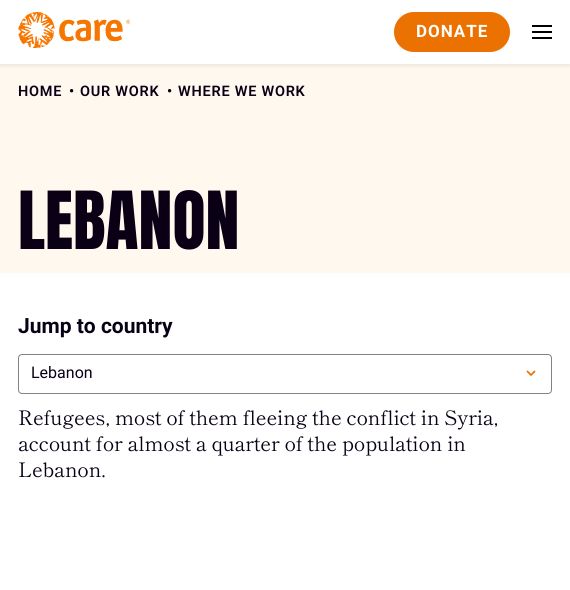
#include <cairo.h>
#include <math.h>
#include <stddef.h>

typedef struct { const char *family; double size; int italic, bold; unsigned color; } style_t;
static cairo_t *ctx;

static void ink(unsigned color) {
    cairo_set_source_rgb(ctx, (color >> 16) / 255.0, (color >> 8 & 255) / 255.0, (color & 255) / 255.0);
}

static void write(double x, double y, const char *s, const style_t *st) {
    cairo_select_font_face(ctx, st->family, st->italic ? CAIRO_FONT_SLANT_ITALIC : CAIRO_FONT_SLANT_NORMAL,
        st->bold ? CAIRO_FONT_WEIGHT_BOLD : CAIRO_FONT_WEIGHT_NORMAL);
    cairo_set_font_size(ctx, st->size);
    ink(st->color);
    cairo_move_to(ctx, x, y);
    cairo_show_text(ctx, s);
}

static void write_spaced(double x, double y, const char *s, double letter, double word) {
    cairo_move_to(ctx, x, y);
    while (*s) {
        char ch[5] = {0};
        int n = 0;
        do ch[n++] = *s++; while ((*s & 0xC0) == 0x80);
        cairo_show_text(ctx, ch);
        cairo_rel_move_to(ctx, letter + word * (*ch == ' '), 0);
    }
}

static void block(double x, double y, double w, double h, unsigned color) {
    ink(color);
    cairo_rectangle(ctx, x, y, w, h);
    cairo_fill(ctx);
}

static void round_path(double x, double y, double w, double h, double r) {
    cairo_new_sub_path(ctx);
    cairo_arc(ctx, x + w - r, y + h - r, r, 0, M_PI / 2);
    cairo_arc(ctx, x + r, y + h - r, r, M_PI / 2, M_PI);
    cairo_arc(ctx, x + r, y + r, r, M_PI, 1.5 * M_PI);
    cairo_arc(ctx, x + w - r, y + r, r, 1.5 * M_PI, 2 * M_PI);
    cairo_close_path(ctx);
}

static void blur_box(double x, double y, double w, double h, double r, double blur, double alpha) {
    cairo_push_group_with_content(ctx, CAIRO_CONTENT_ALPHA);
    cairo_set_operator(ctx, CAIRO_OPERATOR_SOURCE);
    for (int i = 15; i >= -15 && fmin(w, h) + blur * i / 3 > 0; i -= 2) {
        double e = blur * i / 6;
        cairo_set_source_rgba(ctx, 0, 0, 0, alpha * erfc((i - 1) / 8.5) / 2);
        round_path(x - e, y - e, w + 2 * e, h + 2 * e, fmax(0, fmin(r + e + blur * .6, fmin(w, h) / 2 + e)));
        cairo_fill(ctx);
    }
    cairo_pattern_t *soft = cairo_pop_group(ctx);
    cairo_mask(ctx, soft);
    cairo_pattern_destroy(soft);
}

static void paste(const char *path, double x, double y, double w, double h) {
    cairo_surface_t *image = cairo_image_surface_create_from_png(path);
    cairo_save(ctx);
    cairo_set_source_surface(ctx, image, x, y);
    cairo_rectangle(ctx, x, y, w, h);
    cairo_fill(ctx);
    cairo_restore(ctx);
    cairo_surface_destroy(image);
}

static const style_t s1 = {"Anton", 68, 0, 0, 0x090015};
static const style_t s2 = {"Roboto", 21, 0, 1, 0x090015};
static const style_t s3 = {"Roboto", 16, 0, 0, 0x090015};

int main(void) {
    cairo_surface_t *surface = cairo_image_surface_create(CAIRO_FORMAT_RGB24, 570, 590);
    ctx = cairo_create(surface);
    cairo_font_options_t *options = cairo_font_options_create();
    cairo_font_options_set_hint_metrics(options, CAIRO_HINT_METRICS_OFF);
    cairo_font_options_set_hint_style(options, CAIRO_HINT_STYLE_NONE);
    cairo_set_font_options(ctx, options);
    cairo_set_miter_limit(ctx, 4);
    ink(0xffffff);
    cairo_paint(ctx);
    cairo_save(ctx);
    cairo_rectangle(ctx, 0, 64, 570, 209);
    cairo_clip(ctx);
    ink(0xfff8ee);
    cairo_new_path(ctx);
    cairo_move_to(ctx, 142.5, -250);
    cairo_curve_to(ctx, 614.5, -250, 997.5, -62.5, 997.5, 168.5);
    cairo_curve_to(ctx, 997.5, 399.5, 614.5, 587, 142.5, 587);
    cairo_curve_to(ctx, -329.5, 587, -712.5, 399.5, -712.5, 168.5);
    cairo_curve_to(ctx, -712.5, -62.5, -329.5, -250, 142.5, -250);
    cairo_close_path(ctx);
    cairo_fill(ctx);
    cairo_restore(ctx);
    cairo_save(ctx);
    cairo_rectangle(ctx, 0, 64, 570, 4);
    cairo_clip(ctx);
    ink(0x000000);
    blur_box(0, 0, 570, 64, 0, 4, 0.12);
    cairo_restore(ctx);
    paste("pic1.png", 18, 12, 112, 36);
    ink(0xeb7100);
    round_path(394, 12, 116, 40, 20);
    cairo_fill(ctx);
    cairo_select_font_face(ctx, "Roboto", CAIRO_FONT_SLANT_NORMAL, CAIRO_FONT_WEIGHT_BOLD);
    cairo_set_font_size(ctx, 17);
    ink(0xffffff);
    write_spaced(416, 37, "DONATE", 1, 0);
    block(532, 31, 20, 2, 0x000000);
    block(532, 25, 20, 2, 0x000000);
    block(532, 37, 20, 2, 0x000000);
    cairo_select_font_face(ctx, "Roboto SemiBold", CAIRO_FONT_SLANT_NORMAL, CAIRO_FONT_WEIGHT_NORMAL);
    cairo_set_font_size(ctx, 14.5);
    ink(0x090015);
    write_spaced(18, 96, "HOME", 0.75, 0);
    write_spaced(69, 96, "•", 0.75, 0);
    write_spaced(80, 96, "OUR WORK", 0.75, 0);
    write_spaced(167, 96, "•", 0.75, 0);
    write_spaced(178, 96, "WHERE WE WORK", 0.75, 0);
    write(18, 249, "LEBANON", &s1);
    write(18, 333, "Jump to country", &s2);
    round_path(18.5, 354.5, 533, 39, 3.5);
    ink(0x84808a);
    cairo_set_line_width(ctx, 1);
    cairo_stroke(ctx);
    write(31, 378, "Lebanon", &s3);
    cairo_new_path(ctx);
    cairo_move_to(ctx, 527, 371);
    cairo_line_to(ctx, 531, 375);
    cairo_line_to(ctx, 535, 371);
    ink(0xeb7100);
    cairo_set_line_width(ctx, 1.7);
    cairo_stroke(ctx);
    cairo_select_font_face(ctx, "Shippori Mincho", CAIRO_FONT_SLANT_NORMAL, CAIRO_FONT_WEIGHT_NORMAL);
    cairo_set_font_size(ctx, 20);
    ink(0x090015);
    write_spaced(18, 425, "Refugees, most of them fleeing the conflict in Syria,", -0.2, 0);
    write_spaced(18, 451, "account for almost a quarter of the population in", -0.2, 0);
    write_spaced(18, 477, "Lebanon.", -0.2, 0);
    cairo_surface_write_to_png(surface, "screenshot.png");
    cairo_font_options_destroy(options);
    cairo_destroy(ctx);
    cairo_surface_destroy(surface);
    return 0;
}
